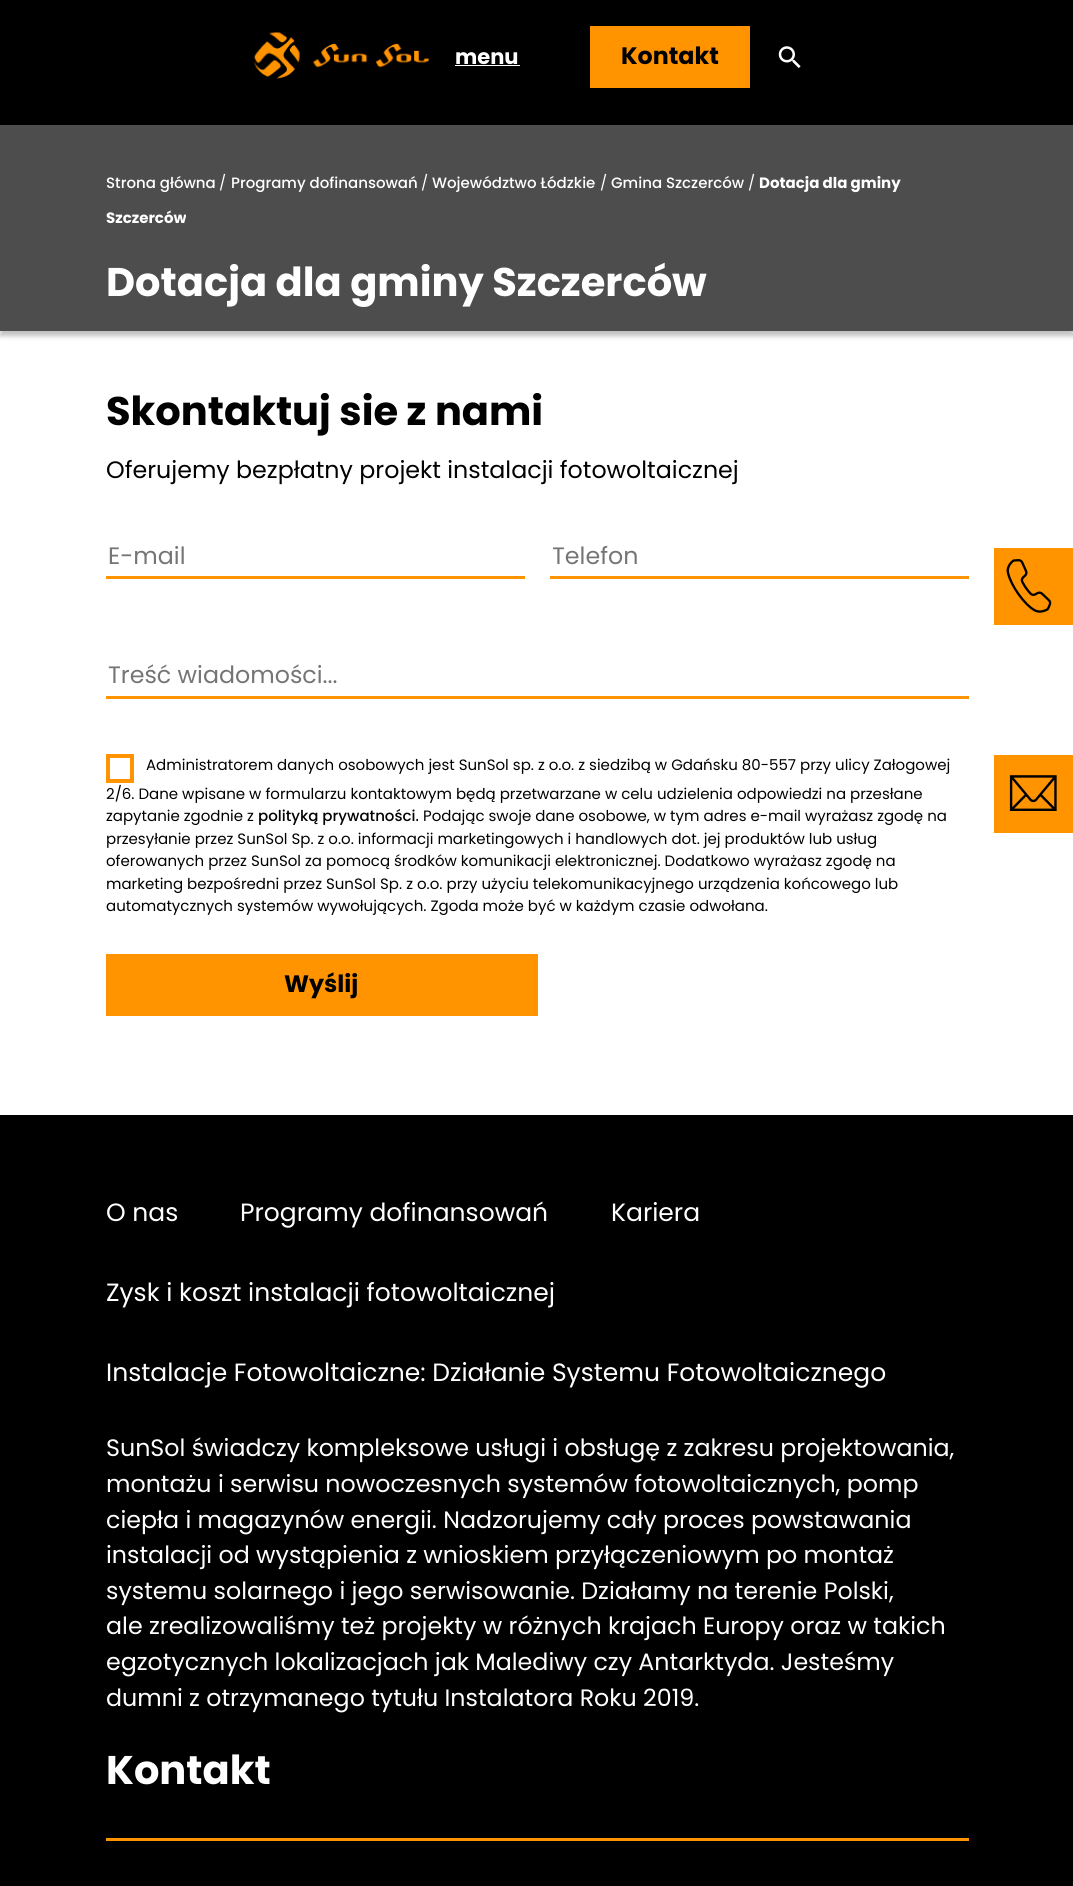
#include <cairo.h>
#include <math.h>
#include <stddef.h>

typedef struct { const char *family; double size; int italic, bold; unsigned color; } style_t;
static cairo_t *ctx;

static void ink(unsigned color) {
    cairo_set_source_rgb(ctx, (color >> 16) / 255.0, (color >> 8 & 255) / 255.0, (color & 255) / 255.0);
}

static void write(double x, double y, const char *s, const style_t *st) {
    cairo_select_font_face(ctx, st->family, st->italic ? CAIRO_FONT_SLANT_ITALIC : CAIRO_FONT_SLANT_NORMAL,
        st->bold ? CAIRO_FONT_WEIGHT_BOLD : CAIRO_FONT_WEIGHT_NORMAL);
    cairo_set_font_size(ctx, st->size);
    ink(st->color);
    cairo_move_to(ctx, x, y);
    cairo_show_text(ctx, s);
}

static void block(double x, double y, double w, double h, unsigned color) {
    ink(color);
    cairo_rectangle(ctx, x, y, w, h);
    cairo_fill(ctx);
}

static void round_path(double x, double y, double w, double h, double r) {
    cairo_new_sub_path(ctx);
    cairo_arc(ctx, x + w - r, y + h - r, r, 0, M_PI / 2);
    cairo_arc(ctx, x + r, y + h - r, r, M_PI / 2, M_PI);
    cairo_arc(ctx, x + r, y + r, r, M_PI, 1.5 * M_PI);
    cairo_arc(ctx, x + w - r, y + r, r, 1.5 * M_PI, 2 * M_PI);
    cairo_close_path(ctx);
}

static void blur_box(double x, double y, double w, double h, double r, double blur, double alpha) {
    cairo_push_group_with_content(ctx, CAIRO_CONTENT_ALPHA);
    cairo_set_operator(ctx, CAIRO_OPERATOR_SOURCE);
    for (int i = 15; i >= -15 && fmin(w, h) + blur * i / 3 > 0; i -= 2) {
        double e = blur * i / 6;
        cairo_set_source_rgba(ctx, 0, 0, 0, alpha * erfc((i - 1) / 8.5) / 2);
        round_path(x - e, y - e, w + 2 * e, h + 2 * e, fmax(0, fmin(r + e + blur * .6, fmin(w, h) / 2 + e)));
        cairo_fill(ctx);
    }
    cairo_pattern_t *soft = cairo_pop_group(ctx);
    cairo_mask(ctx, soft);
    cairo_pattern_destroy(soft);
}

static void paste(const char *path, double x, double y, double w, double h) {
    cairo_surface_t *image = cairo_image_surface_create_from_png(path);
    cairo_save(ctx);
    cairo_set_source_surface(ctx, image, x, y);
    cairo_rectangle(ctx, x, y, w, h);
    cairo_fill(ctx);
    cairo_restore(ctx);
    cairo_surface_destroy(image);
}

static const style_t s1 = {"Poppins", 21, 0, 1, 0xffffff};
static const style_t s2 = {"Poppins", 23.75, 0, 1, 0x000000};
static const style_t s3 = {"Poppins Medium", 15, 0, 0, 0xffffff};
static const style_t s4 = {"Poppins", 15, 0, 0, 0xffffff};
static const style_t s5 = {"Poppins", 15, 0, 1, 0xffffff};
static const style_t s6 = {"Poppins", 40, 0, 1, 0xffffff};
static const style_t s7 = {"Poppins", 40, 0, 1, 0x000000};
static const style_t s8 = {"Poppins", 23.75, 0, 0, 0x000000};
static const style_t s9 = {"Poppins", 23.75, 0, 0, 0x757575};
static const style_t s10 = {"Poppins", 15, 0, 0, 0x000000};
static const style_t s11 = {"Poppins Medium", 15, 0, 0, 0x000000};
static const style_t s12 = {"Poppins", 25, 0, 0, 0xffffff};
static const style_t s13 = {"Poppins", 23.75, 0, 0, 0xffffff};

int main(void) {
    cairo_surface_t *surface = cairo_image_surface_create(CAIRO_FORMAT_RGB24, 1073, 1886);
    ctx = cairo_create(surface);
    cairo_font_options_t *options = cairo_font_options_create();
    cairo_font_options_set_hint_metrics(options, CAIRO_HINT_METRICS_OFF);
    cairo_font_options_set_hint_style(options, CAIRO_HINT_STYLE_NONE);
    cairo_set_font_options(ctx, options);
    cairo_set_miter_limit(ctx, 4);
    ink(0xffffff);
    cairo_paint(ctx);
    ink(0x000000);
    blur_box(0, 5, 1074, 331, 0, 2.5, 0.25);
    block(0, 0, 1073, 125, 0x000000);
    paste("pic1.png", 253, 32, 176, 47);
    write(455, 64, "menu", &s1);
    block(455, 65, 65, 1, 0xffffff);
    block(590, 26, 160, 62, 0xff9400);
    write(621, 64, "Kontakt", &s2);
    paste("pic2.png", 778, 46, 23, 22);
    block(0, 125, 1073, 206, 0x4d4d4d);
    write(106, 188, "Strona główna", &s3);
    write(219, 188, "/", &s4);
    write(231, 188, "Programy dofinansowań", &s3);
    write(421, 188, "/", &s4);
    write(432, 188, "Województwo Łódzkie", &s3);
    write(600, 188, "/", &s4);
    write(611, 188, "Gmina Szczerców", &s3);
    write(748, 188, "/", &s4);
    write(759, 188, "Dotacja dla gminy", &s5);
    write(106, 223, "Szczerców", &s5);
    write(106, 296, "Dotacja dla gminy Szczerców", &s6);
    write(106, 425, "Skontaktuj sie z nami", &s7);
    write(106, 478, "Oferujemy bezpłatny projekt instalacji fotowoltaicznej", &s8);
    block(106, 576, 419, 3, 0xff9400);
    write(108, 564, "E-mail", &s9);
    block(550, 576, 419, 3, 0xff9400);
    cairo_save(ctx);
    cairo_rectangle(ctx, 553, 538, 413, 36);
    cairo_clip(ctx);
    write(552, 564, "Telefon", &s9);
    cairo_restore(ctx);
    block(106, 696, 863, 3, 0xff9400);
    write(108, 683, "Treść wiadomości...", &s9);
    cairo_rectangle(ctx, 108, 756, 24, 25);
    ink(0xff9400);
    cairo_set_line_width(ctx, 4);
    cairo_stroke(ctx);
    write(146, 770, "Administratorem danych osobowych jest SunSol sp. z o.o. z siedzibą w Gdańsku 80-557 przy ulicy Załogowej", &s10);
    write(106, 799, "2/6. Dane wpisane w formularzu kontaktowym będą przetwarzane w celu udzielenia odpowiedzi na przesłane", &s10);
    write(106, 821, "zapytanie zgodnie z", &s10);
    write(258, 821, "polityką prywatności.", &s11);
    write(423, 821, "Podając swoje dane osobowe, w tym adres e-mail wyrażasz zgodę na", &s10);
    write(106, 844, "przesyłanie przez SunSol Sp. z o.o. informacji marketingowych i handlowych dot. jej produktów lub usług", &s10);
    write(106, 866, "oferowanych przez SunSol za pomocą środków komunikacji elektronicznej. Dodatkowo wyrażasz zgodę na", &s10);
    write(106, 889, "marketing bezpośredni przez SunSol Sp. z o.o. przy użyciu telekomunikacyjnego urządzenia końcowego lub", &s10);
    write(106, 911, "automatycznych systemów wywołujących. Zgoda może być w każdym czasie odwołana.", &s10);
    block(106, 954, 432, 62, 0xff9400);
    write(284, 992, "Wyślij", &s2);
    block(0, 1115, 1073, 771, 0x000000);
    write(106, 1221, "O nas", &s12);
    write(240, 1221, "Programy dofinansowań", &s12);
    write(611, 1221, "Kariera", &s12);
    write(106, 1301, "Zysk i koszt instalacji fotowoltaicznej", &s12);
    write(106, 1381, "Instalacje Fotowoltaiczne: Działanie Systemu Fotowoltaicznego", &s12);
    write(106, 1456, "SunSol świadczy kompleksowe usługi i obsługę z zakresu projektowania,", &s13);
    write(106, 1492, "montażu i serwisu nowoczesnych systemów fotowoltaicznych, pomp", &s13);
    write(106, 1528, "ciepła i magazynów energii. Nadzorujemy cały proces powstawania", &s13);
    write(106, 1563, "instalacji od wystąpienia z wnioskiem przyłączeniowym po montaż", &s13);
    write(106, 1599, "systemu solarnego i jego serwisowanie. Działamy na terenie Polski,", &s13);
    write(106, 1634, "ale zrealizowaliśmy też projekty w różnych krajach Europy oraz w takich", &s13);
    write(106, 1670, "egzotycznych lokalizacjach jak Malediwy czy Antarktyda. Jesteśmy", &s13);
    write(106, 1706, "dumni z otrzymanego tytułu Instalatora Roku 2019.", &s13);
    write(106, 1784, "Kontakt", &s6);
    block(106, 1838, 863, 3, 0xff9400);
    block(994, 548, 79, 77, 0xff9400);
    paste("pic3.png", 1006, 559, 46, 54);
    block(994, 755, 79, 78, 0xff9400);
    paste("pic4.png", 1009, 775, 48, 36);
    cairo_surface_write_to_png(surface, "screenshot.png");
    cairo_font_options_destroy(options);
    cairo_destroy(ctx);
    cairo_surface_destroy(surface);
    return 0;
}
